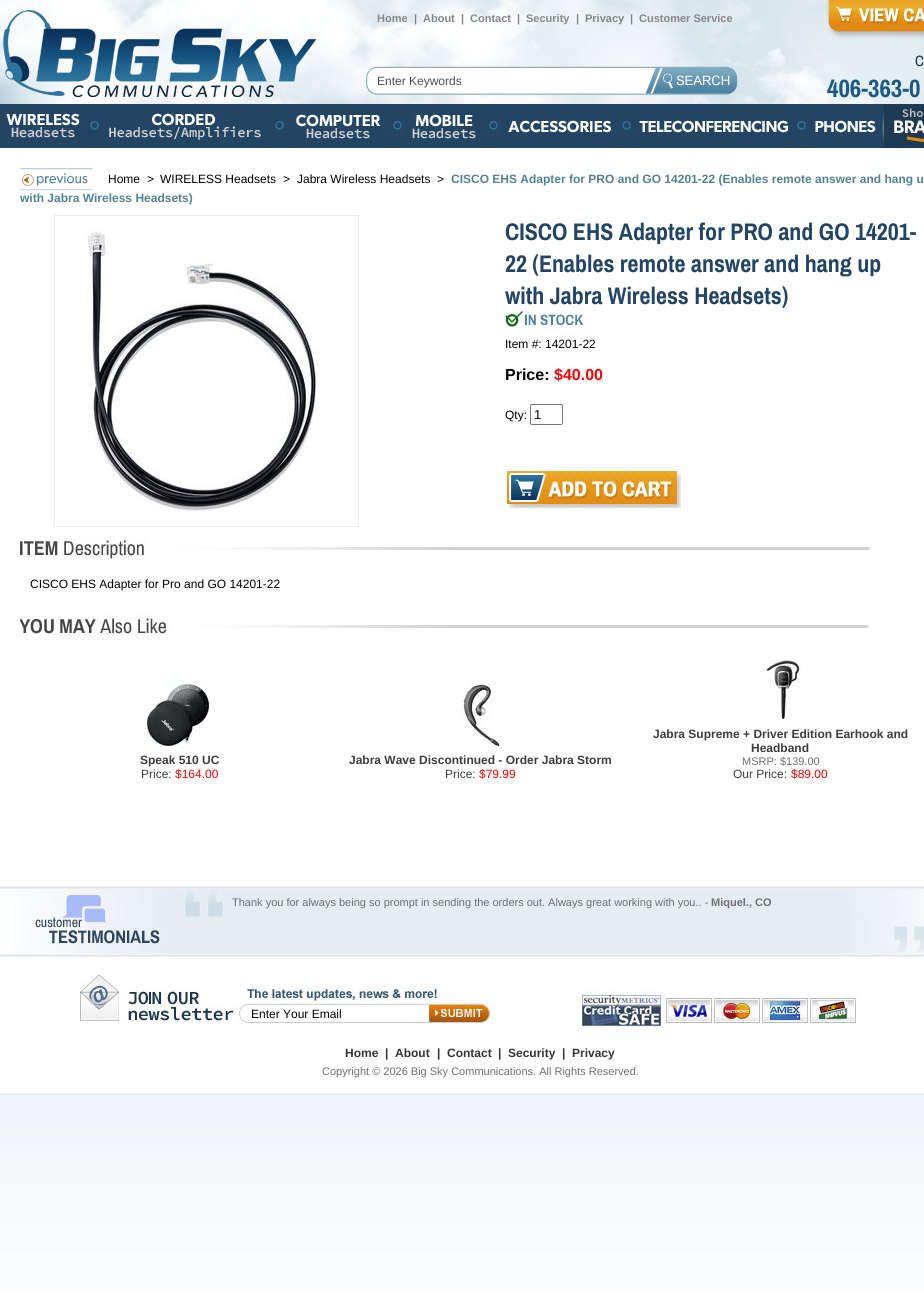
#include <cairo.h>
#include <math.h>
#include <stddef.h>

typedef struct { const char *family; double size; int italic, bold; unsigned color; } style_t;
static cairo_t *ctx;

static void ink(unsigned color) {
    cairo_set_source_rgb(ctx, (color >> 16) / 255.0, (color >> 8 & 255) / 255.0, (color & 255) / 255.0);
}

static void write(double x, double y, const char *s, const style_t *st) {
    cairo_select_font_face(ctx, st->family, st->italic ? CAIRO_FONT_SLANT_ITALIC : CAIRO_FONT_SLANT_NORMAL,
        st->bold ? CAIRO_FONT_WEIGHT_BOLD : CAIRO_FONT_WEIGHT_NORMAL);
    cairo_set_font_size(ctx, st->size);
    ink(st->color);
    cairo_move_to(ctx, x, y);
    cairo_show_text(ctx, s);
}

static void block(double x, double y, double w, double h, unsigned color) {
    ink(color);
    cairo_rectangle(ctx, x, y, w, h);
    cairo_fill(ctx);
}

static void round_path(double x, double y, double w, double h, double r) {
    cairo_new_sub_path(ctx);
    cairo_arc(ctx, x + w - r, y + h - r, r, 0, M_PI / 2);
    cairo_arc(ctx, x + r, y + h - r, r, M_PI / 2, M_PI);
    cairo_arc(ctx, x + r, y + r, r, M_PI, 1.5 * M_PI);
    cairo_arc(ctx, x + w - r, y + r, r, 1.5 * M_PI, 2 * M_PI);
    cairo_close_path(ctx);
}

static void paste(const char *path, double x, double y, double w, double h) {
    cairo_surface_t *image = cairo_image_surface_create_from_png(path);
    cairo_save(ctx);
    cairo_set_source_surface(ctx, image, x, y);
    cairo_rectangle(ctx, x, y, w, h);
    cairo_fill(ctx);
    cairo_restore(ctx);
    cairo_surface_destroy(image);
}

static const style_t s1 = {"Liberation Sans", 11, 0, 1, 0x868686};
static const style_t s2 = {"Liberation Sans", 12, 0, 0, 0x4d4d4d};
static const style_t s3 = {"Archivo Narrow", 15, 0, 0, 0x113148};
static const style_t s4 = {"Archivo Narrow", 25, 0, 1, 0x195985};
static const style_t s5 = {"Liberation Sans", 12, 0, 0, 0x000000};
static const style_t s6 = {"Liberation Sans", 12, 0, 1, 0x538292};
static const style_t s7 = {"Archivo Narrow", 24, 0, 1, 0x224565};
static const style_t s8 = {"Liberation Sans", 16, 0, 1, 0x000000};
static const style_t s9 = {"Liberation Sans", 16, 0, 1, 0xff0100};
static const style_t s10 = {"Liberation Sans", 13, 0, 0, 0x000000};
static const style_t s11 = {"Liberation Sans", 12, 0, 1, 0x3d3d3d};
static const style_t s12 = {"Liberation Sans", 12, 0, 0, 0x3d3d3d};
static const style_t s13 = {"Liberation Sans", 12, 0, 0, 0xff0100};
static const style_t s14 = {"Liberation Sans", 11, 0, 0, 0x6f6f6f};
static const style_t s15 = {"Liberation Sans", 11, 0, 1, 0x6f6f6f};
static const style_t s16 = {"Liberation Sans", 12, 0, 1, 0x353535};

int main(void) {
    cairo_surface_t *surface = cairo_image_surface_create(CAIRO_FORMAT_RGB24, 924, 1311);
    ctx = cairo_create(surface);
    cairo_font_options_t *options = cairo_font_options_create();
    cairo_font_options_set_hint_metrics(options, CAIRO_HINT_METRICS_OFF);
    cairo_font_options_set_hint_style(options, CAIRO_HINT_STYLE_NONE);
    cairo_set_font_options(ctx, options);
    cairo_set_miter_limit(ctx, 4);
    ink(0xffffff);
    cairo_paint(ctx);
    paste("pic1.png", 0, 1093, 924, 199);
    paste("pic2.png", 0, 0, 924, 104);
    write(377, 22, "Home", &s1);
    write(414, 22, "|", &s1);
    write(423, 22, "About", &s1);
    write(461, 22, "|", &s1);
    write(470, 22, "Contact", &s1);
    write(517, 22, "|", &s1);
    write(526, 22, "Security", &s1);
    write(576, 22, "|", &s1);
    write(585, 22, "Privacy", &s1);
    write(630, 22, "|", &s1);
    write(639, 22, "Customer Service", &s1);
    block(374, 69, 266, 23, 0xffffff);
    write(377, 85, "Enter Keywords", &s2);
    paste("pic3.png", 663, 67, 72, 26);
    write(915, 66, "C", &s3);
    write(827, 97, "406-363-0", &s4);
    paste("pic4.png", 0, 104, 924, 44);
    paste("pic5.png", 20, 168, 73, 23);
    write(108, 183, "Home", &s5);
    write(147, 183, ">", &s5);
    write(160, 183, "WIRELESS Headsets", &s5);
    write(283, 183, ">", &s5);
    write(297, 183, "Jabra Wireless Headsets", &s5);
    write(437, 183, ">", &s5);
    write(451, 183, "CISCO EHS Adapter for PRO and GO 14201-22 (Enables remote answer and hang u", &s6);
    write(20, 202, "with Jabra Wireless Headsets)", &s6);
    cairo_rectangle(ctx, 54.5, 215.5, 304, 311);
    ink(0xe9edf0);
    cairo_set_line_width(ctx, 1);
    cairo_stroke(ctx);
    paste("pic6.png", 86, 229, 232, 284);
    write(505, 240, "CISCO EHS Adapter for PRO and GO 14201-", &s7);
    write(505, 272, "22 (Enables remote answer and hang up", &s7);
    write(505, 304, "with Jabra Wireless Headsets)", &s7);
    paste("pic7.png", 505, 311, 78, 16);
    write(505, 348, "Item #: 14201-22", &s5);
    write(505, 380, "Price:", &s8);
    write(554, 380, "$40.00", &s9);
    write(505, 419, "Qty:", &s5);
    round_path(530.5, 404.5, 32, 20, 1.5);
    ink(0x767676);
    cairo_stroke(ctx);
    write(534, 419, "1", &s10);
    paste("pic8.png", 505, 470, 176, 38);
    paste("pic9.png", 20, 533, 851, 32);
    write(30, 588, "CISCO EHS Adapter for Pro and GO 14201-22", &s5);
    paste("pic10.png", 20, 612, 849, 23);
    paste("pic11.png", 144, 681, 71, 67);
    write(140, 764, "Speak 510 UC", &s11);
    write(141, 778, "Price:", &s12);
    write(175, 778, "$164.00", &s13);
    paste("pic12.png", 460, 681, 40, 67);
    write(349, 764, "Jabra Wave Discontinued - Order Jabra Storm", &s11);
    write(445, 778, "Price:", &s12);
    write(479, 778, "$79.99", &s13);
    paste("pic13.png", 762, 656, 39, 63);
    write(653, 738, "Jabra Supreme + Driver Edition Earhook and", &s11);
    write(751, 752, "Headband", &s11);
    write(742, 765, "MSRP: $139.00", &s14);
    write(733, 778, "Our Price:", &s12);
    write(791, 778, "$89.00", &s13);
    paste("pic14.png", 0, 886, 924, 144);
    write(232, 906, "Thank you for always being so prompt in sending the orders out. Always great working with you.. -", &s14);
    write(711, 906, "Miquel., CO", &s15);
    block(424, 1006, 4, 15, 0xffffff);
    write(251, 1018, "Enter Your Email", &s5);
    paste("pic15.png", 428, 1003, 62, 21);
    write(345, 1057, "Home", &s16);
    write(385, 1057, "|", &s16);
    write(395, 1057, "About", &s16);
    write(437, 1057, "|", &s16);
    write(447, 1057, "Contact", &s16);
    write(498, 1057, "|", &s16);
    write(508, 1057, "Security", &s16);
    write(562, 1057, "|", &s16);
    write(572, 1057, "Privacy", &s16);
    write(322, 1075, "Copyright © 2026 Big Sky Communications. All Rights Reserved.", &s14);
    cairo_surface_write_to_png(surface, "screenshot.png");
    cairo_font_options_destroy(options);
    cairo_destroy(ctx);
    cairo_surface_destroy(surface);
    return 0;
}
